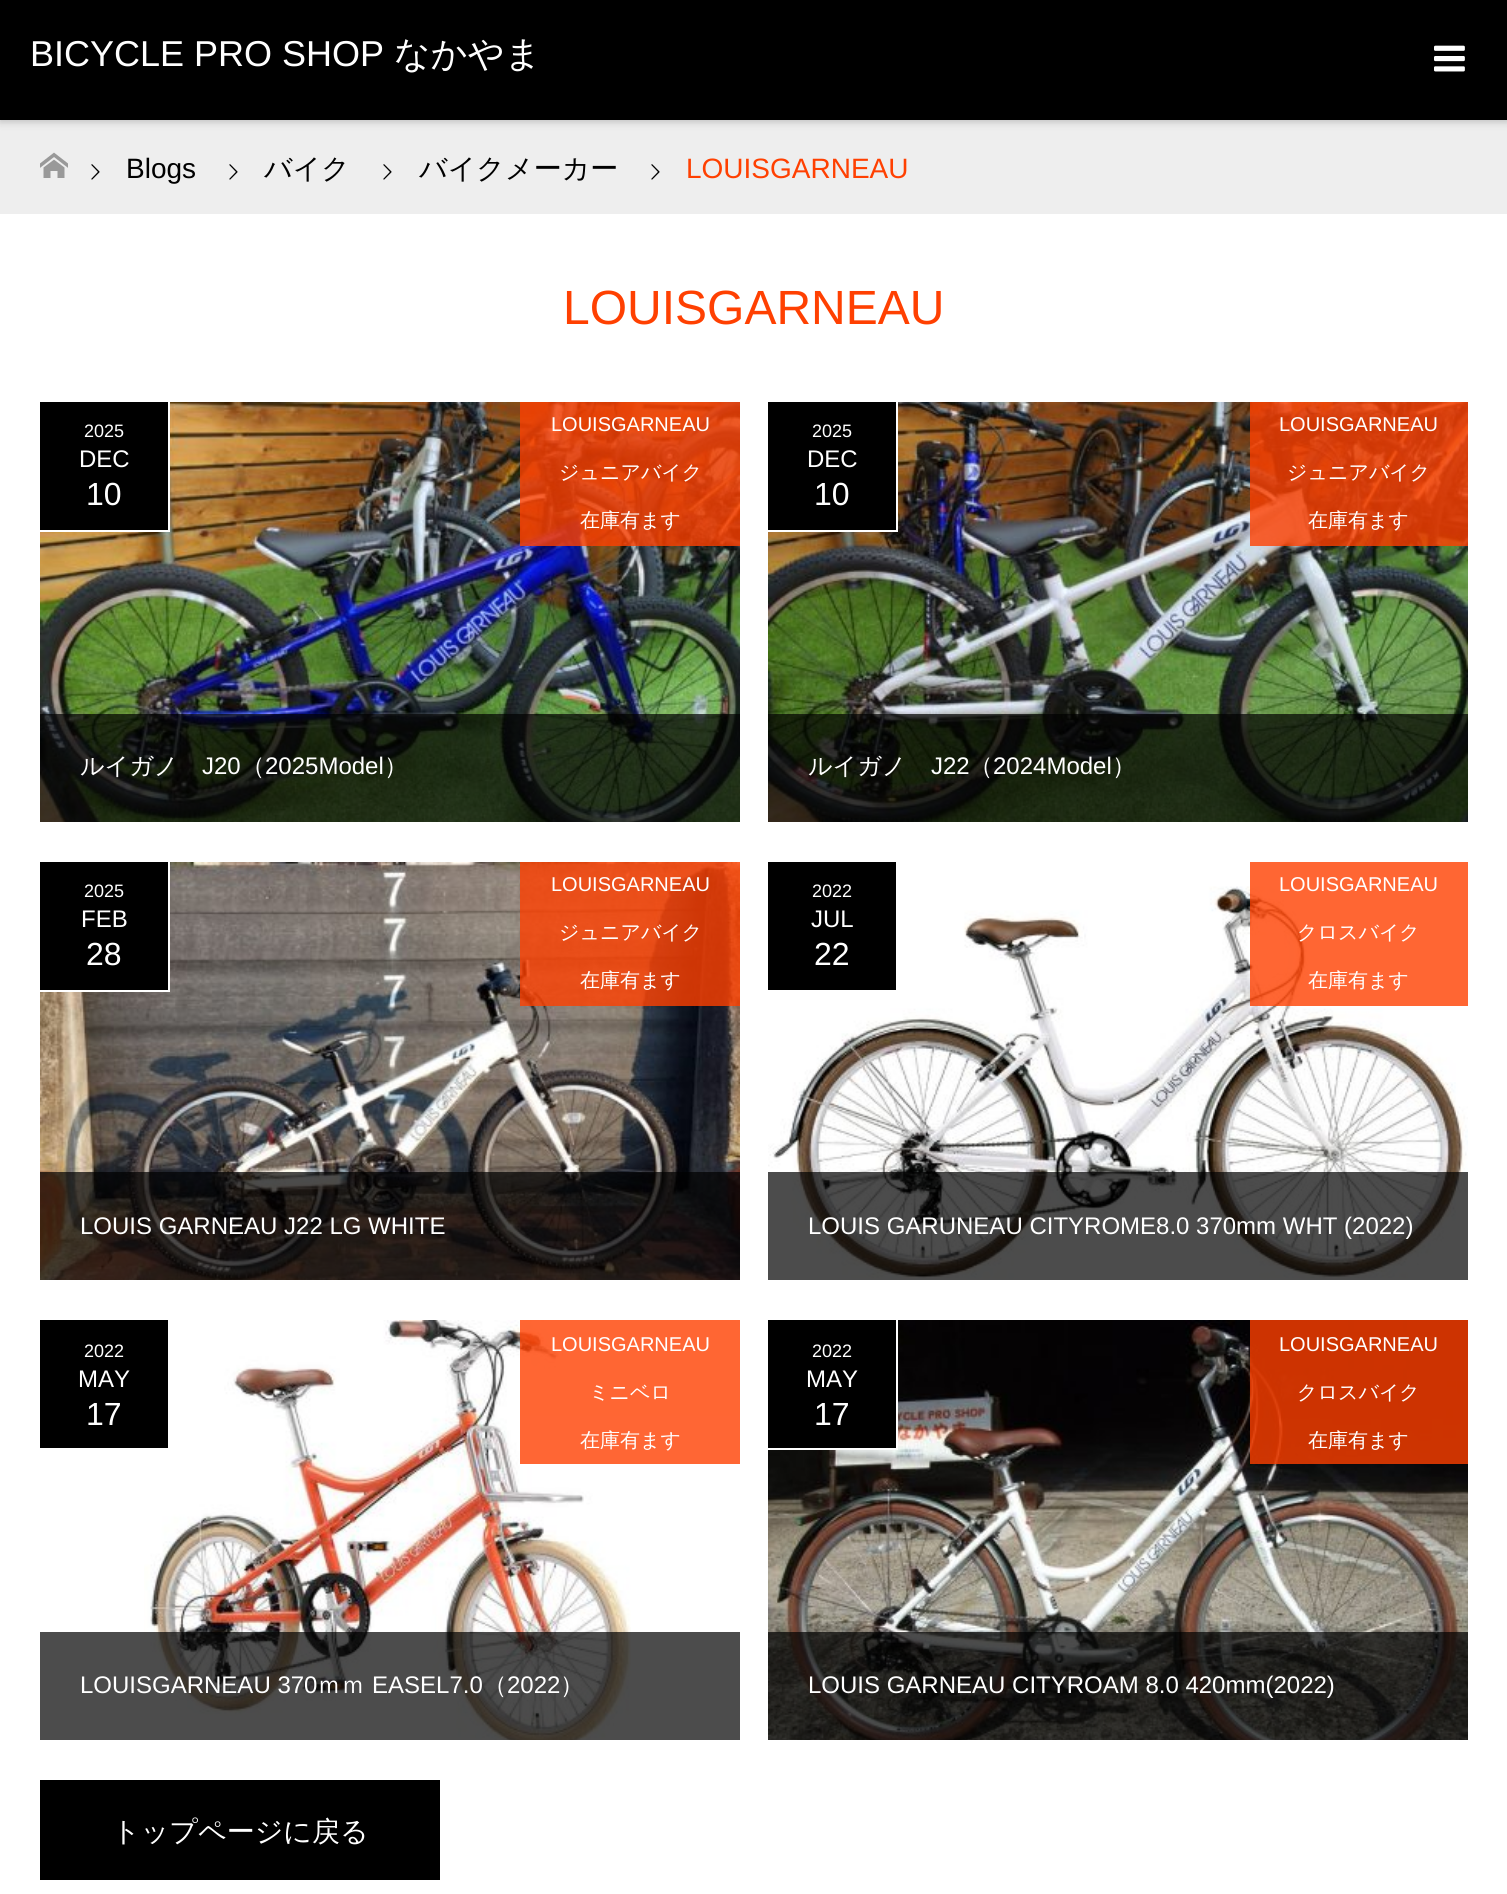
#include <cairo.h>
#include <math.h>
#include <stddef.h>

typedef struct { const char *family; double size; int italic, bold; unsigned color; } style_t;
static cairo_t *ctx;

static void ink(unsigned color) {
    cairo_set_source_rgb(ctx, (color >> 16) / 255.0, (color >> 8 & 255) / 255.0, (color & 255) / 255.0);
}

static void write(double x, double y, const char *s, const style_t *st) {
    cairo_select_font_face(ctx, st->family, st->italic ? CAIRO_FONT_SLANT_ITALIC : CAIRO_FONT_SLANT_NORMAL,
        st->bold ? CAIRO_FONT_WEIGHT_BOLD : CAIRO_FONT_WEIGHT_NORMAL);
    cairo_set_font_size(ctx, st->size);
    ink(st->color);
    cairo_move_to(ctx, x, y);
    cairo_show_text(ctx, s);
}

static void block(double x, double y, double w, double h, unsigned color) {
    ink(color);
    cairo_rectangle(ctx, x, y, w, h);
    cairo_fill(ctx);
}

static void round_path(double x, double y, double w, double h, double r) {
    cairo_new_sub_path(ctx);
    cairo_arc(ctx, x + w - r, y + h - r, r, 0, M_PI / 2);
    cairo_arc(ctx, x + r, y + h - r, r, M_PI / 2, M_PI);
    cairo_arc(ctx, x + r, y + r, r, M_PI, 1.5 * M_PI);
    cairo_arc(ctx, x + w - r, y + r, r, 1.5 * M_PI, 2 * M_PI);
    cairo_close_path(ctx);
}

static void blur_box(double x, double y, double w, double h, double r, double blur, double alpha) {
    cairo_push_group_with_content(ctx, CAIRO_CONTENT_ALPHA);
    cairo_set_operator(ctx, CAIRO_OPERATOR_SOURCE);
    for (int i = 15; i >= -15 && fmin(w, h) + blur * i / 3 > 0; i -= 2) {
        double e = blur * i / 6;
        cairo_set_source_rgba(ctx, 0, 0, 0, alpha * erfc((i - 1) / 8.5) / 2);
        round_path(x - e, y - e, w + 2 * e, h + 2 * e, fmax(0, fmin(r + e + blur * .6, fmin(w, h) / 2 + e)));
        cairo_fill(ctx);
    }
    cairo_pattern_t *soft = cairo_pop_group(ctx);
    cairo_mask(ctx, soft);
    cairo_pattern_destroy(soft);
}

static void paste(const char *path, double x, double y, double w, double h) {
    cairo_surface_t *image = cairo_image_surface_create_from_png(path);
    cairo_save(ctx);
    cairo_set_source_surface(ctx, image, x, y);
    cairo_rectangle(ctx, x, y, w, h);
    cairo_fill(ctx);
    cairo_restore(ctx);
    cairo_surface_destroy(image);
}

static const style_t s1 = {"Liberation Sans", 36, 0, 0, 0xffffff};
static const style_t s2 = {"WenQuanYi Zen Hei Medium", 36, 0, 0, 0xffffff};
static const style_t s3 = {"Liberation Sans", 28, 0, 0, 0x000000};
static const style_t s4 = {"WenQuanYi Zen Hei Medium", 28, 0, 0, 0x000000};
static const style_t s5 = {"Liberation Sans", 28, 0, 0, 0xff4001};
static const style_t s6 = {"Liberation Sans", 48, 0, 0, 0xff4001};
static const style_t s7 = {"Liberation Sans", 18, 0, 0, 0xffffff};
static const style_t s8 = {"Liberation Sans", 24, 0, 0, 0xffffff};
static const style_t s9 = {"Liberation Sans", 32, 0, 0, 0xffffff};
static const style_t s10 = {"Liberation Sans", 20, 0, 0, 0xffffff};
static const style_t s11 = {"WenQuanYi Zen Hei Medium", 20, 0, 0, 0xffffff};
static const style_t s12 = {"WenQuanYi Zen Hei Medium", 24, 0, 0, 0xffffff};
static const style_t s13 = {"WenQuanYi Zen Hei Medium", 28, 0, 0, 0xffffff};

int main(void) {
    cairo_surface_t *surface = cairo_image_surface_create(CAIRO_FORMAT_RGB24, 1507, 1894);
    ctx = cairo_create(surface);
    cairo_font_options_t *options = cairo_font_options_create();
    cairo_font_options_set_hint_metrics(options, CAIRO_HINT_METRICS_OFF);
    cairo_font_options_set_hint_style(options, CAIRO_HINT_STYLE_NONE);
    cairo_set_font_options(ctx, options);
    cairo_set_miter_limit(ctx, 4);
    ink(0xffffff);
    cairo_paint(ctx);
    block(0, 120, 1507, 94, 0xeeeeee);
    ink(0x000000);
    blur_box(0, 2, 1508, 120, 0, 4, 0.2);
    block(0, 0, 1507, 120, 0x000000);
    write(30, 66, "BICYCLE PRO SHOP", &s1);
    write(394, 66, "なかやま", &s2);
    paste("pic1.png", 1434, 45, 31, 27);
    paste("pic2.png", 40, 152, 28, 26);
    paste("pic3.png", 91, 164, 9, 16);
    write(126, 178, "Blogs", &s3);
    paste("pic3.png", 229, 164, 9, 16);
    write(264, 178, "バイク", &s4);
    paste("pic3.png", 383, 164, 9, 16);
    write(419, 178, "バイクメーカー", &s4);
    paste("pic3.png", 651, 164, 9, 16);
    write(686, 178, "LOUISGARNEAU", &s5);
    write(563, 324, "LOUISGARNEAU", &s6);
    paste("pic4.png", 40, 402, 700, 420);
    block(40, 402, 128, 128, 0x000000);
    block(168, 402, 2, 130, 0xffffff);
    block(40, 530, 130, 2, 0xffffff);
    write(84, 437, "2025", &s7);
    write(79, 467, "DEC", &s8);
    write(86, 505, "10", &s9);
    cairo_set_source_rgba(ctx, 1, 0.251, 0.004, 0.8);
    cairo_rectangle(ctx, 520, 402, 220, 48);
    cairo_fill(ctx);
    write(551, 431, "LOUISGARNEAU", &s10);
    cairo_set_source_rgba(ctx, 1, 0.251, 0, 0.8);
    cairo_rectangle(ctx, 520, 450, 220, 48);
    cairo_fill(ctx);
    write(559, 479, "ジュニアバイク", &s11);
    cairo_set_source_rgba(ctx, 1, 0.251, 0.004, 0.8);
    cairo_rectangle(ctx, 520, 498, 220, 48);
    cairo_fill(ctx);
    write(580, 527, "在庫有ます", &s11);
    cairo_set_source_rgba(ctx, 0, 0, 0, 0.7);
    cairo_rectangle(ctx, 40, 714, 700, 108);
    cairo_fill(ctx);
    write(80, 774, "ルイガノ", &s12);
    write(202, 774, "J20", &s8);
    write(241, 774, "（", &s12);
    write(265, 774, "2025Model", &s8);
    write(384, 774, "）", &s12);
    paste("pic5.png", 768, 402, 700, 420);
    block(768, 402, 128, 128, 0x000000);
    block(896, 402, 2, 130, 0xffffff);
    block(768, 530, 130, 2, 0xffffff);
    write(812, 437, "2025", &s7);
    write(807, 467, "DEC", &s8);
    write(814, 505, "10", &s9);
    cairo_set_source_rgba(ctx, 1, 0.251, 0.004, 0.8);
    cairo_rectangle(ctx, 1250, 402, 218, 48);
    cairo_fill(ctx);
    write(1279, 431, "LOUISGARNEAU", &s10);
    cairo_set_source_rgba(ctx, 1, 0.251, 0, 0.8);
    cairo_rectangle(ctx, 1250, 450, 218, 48);
    cairo_fill(ctx);
    write(1287, 479, "ジュニアバイク", &s11);
    cairo_set_source_rgba(ctx, 1, 0.251, 0.004, 0.8);
    cairo_rectangle(ctx, 1250, 498, 218, 48);
    cairo_fill(ctx);
    write(1308, 527, "在庫有ます", &s11);
    cairo_set_source_rgba(ctx, 0, 0, 0, 0.7);
    cairo_rectangle(ctx, 768, 714, 700, 108);
    cairo_fill(ctx);
    write(808, 774, "ルイガノ", &s12);
    write(931, 774, "J22", &s8);
    write(969, 774, "（", &s12);
    write(993, 774, "2024Model", &s8);
    write(1112, 774, "）", &s12);
    paste("pic6.png", 40, 862, 700, 418);
    block(40, 862, 128, 128, 0x000000);
    block(168, 862, 2, 130, 0xffffff);
    block(40, 990, 130, 2, 0xffffff);
    write(84, 897, "2025", &s7);
    write(81, 927, "FEB", &s8);
    write(86, 965, "28", &s9);
    cairo_set_source_rgba(ctx, 1, 0.251, 0.004, 0.8);
    cairo_rectangle(ctx, 520, 862, 220, 48);
    cairo_fill(ctx);
    write(551, 891, "LOUISGARNEAU", &s10);
    cairo_set_source_rgba(ctx, 1, 0.251, 0, 0.8);
    cairo_rectangle(ctx, 520, 910, 220, 48);
    cairo_fill(ctx);
    write(559, 939, "ジュニアバイク", &s11);
    cairo_set_source_rgba(ctx, 1, 0.251, 0.004, 0.8);
    cairo_rectangle(ctx, 520, 958, 220, 48);
    cairo_fill(ctx);
    write(580, 987, "在庫有ます", &s11);
    cairo_set_source_rgba(ctx, 0, 0, 0, 0.7);
    cairo_rectangle(ctx, 40, 1172, 700, 108);
    cairo_fill(ctx);
    write(80, 1234, "LOUIS GARNEAU J22 LG WHITE", &s8);
    paste("pic7.png", 768, 886, 700, 393);
    block(768, 862, 128, 128, 0x000000);
    write(812, 897, "2022", &s7);
    write(811, 927, "JUL", &s8);
    write(814, 965, "22", &s9);
    cairo_set_source_rgba(ctx, 1, 0.251, 0.004, 0.8);
    cairo_rectangle(ctx, 1250, 862, 218, 48);
    cairo_fill(ctx);
    write(1279, 891, "LOUISGARNEAU", &s10);
    cairo_set_source_rgba(ctx, 1, 0.251, 0.004, 0.8);
    cairo_rectangle(ctx, 1250, 910, 218, 48);
    cairo_fill(ctx);
    write(1297, 939, "クロスバイク", &s11);
    cairo_set_source_rgba(ctx, 1, 0.251, 0.004, 0.8);
    cairo_rectangle(ctx, 1250, 958, 218, 48);
    cairo_fill(ctx);
    write(1308, 987, "在庫有ます", &s11);
    cairo_set_source_rgba(ctx, 0, 0, 0, 0.7);
    cairo_rectangle(ctx, 768, 1172, 700, 108);
    cairo_fill(ctx);
    write(808, 1234, "LOUIS GARUNEAU CITYROME8.0 370mm WHT (2022)", &s8);
    paste("pic8.png", 144, 1320, 487, 420);
    block(40, 1320, 128, 128, 0x000000);
    write(84, 1357, "2022", &s7);
    write(78, 1387, "MAY", &s8);
    write(86, 1425, "17", &s9);
    cairo_set_source_rgba(ctx, 1, 0.251, 0.004, 0.8);
    cairo_rectangle(ctx, 520, 1320, 220, 48);
    cairo_fill(ctx);
    write(551, 1351, "LOUISGARNEAU", &s10);
    cairo_set_source_rgba(ctx, 1, 0.251, 0, 0.8);
    cairo_rectangle(ctx, 520, 1368, 220, 48);
    cairo_fill(ctx);
    write(589, 1399, "ミニベロ", &s11);
    block(520, 1416, 220, 48, 0xff6634);
    write(580, 1447, "在庫有ます", &s11);
    cairo_set_source_rgba(ctx, 0, 0, 0, 0.7);
    cairo_rectangle(ctx, 40, 1632, 700, 108);
    cairo_fill(ctx);
    write(80, 1693, "LOUISGARNEAU 370", &s8);
    write(317, 1693, "ｍｍ", &s12);
    write(372, 1693, "EASEL7.0", &s8);
    write(483, 1693, "（", &s12);
    write(507, 1693, "2022", &s8);
    write(560, 1693, "）", &s12);
    paste("pic9.png", 768, 1320, 700, 420);
    block(768, 1320, 128, 128, 0x000000);
    block(896, 1320, 2, 130, 0xffffff);
    block(768, 1448, 130, 2, 0xffffff);
    write(812, 1357, "2022", &s7);
    write(806, 1387, "MAY", &s8);
    write(814, 1425, "17", &s9);
    cairo_set_source_rgba(ctx, 1, 0.251, 0.004, 0.8);
    cairo_rectangle(ctx, 1250, 1320, 218, 48);
    cairo_fill(ctx);
    write(1279, 1351, "LOUISGARNEAU", &s10);
    cairo_set_source_rgba(ctx, 1, 0.251, 0.004, 0.8);
    cairo_rectangle(ctx, 1250, 1368, 218, 48);
    cairo_fill(ctx);
    write(1297, 1399, "クロスバイク", &s11);
    cairo_set_source_rgba(ctx, 1, 0.251, 0.004, 0.8);
    cairo_rectangle(ctx, 1250, 1416, 218, 48);
    cairo_fill(ctx);
    write(1308, 1447, "在庫有ます", &s11);
    cairo_set_source_rgba(ctx, 0, 0, 0, 0.7);
    cairo_rectangle(ctx, 768, 1632, 700, 108);
    cairo_fill(ctx);
    write(808, 1693, "LOUIS GARNEAU CITYROAM 8.0 420mm(2022)", &s8);
    block(40, 1780, 400, 100, 0x000000);
    write(112, 1841, "トップページに戻る", &s13);
    cairo_surface_write_to_png(surface, "screenshot.png");
    cairo_font_options_destroy(options);
    cairo_destroy(ctx);
    cairo_surface_destroy(surface);
    return 0;
}
